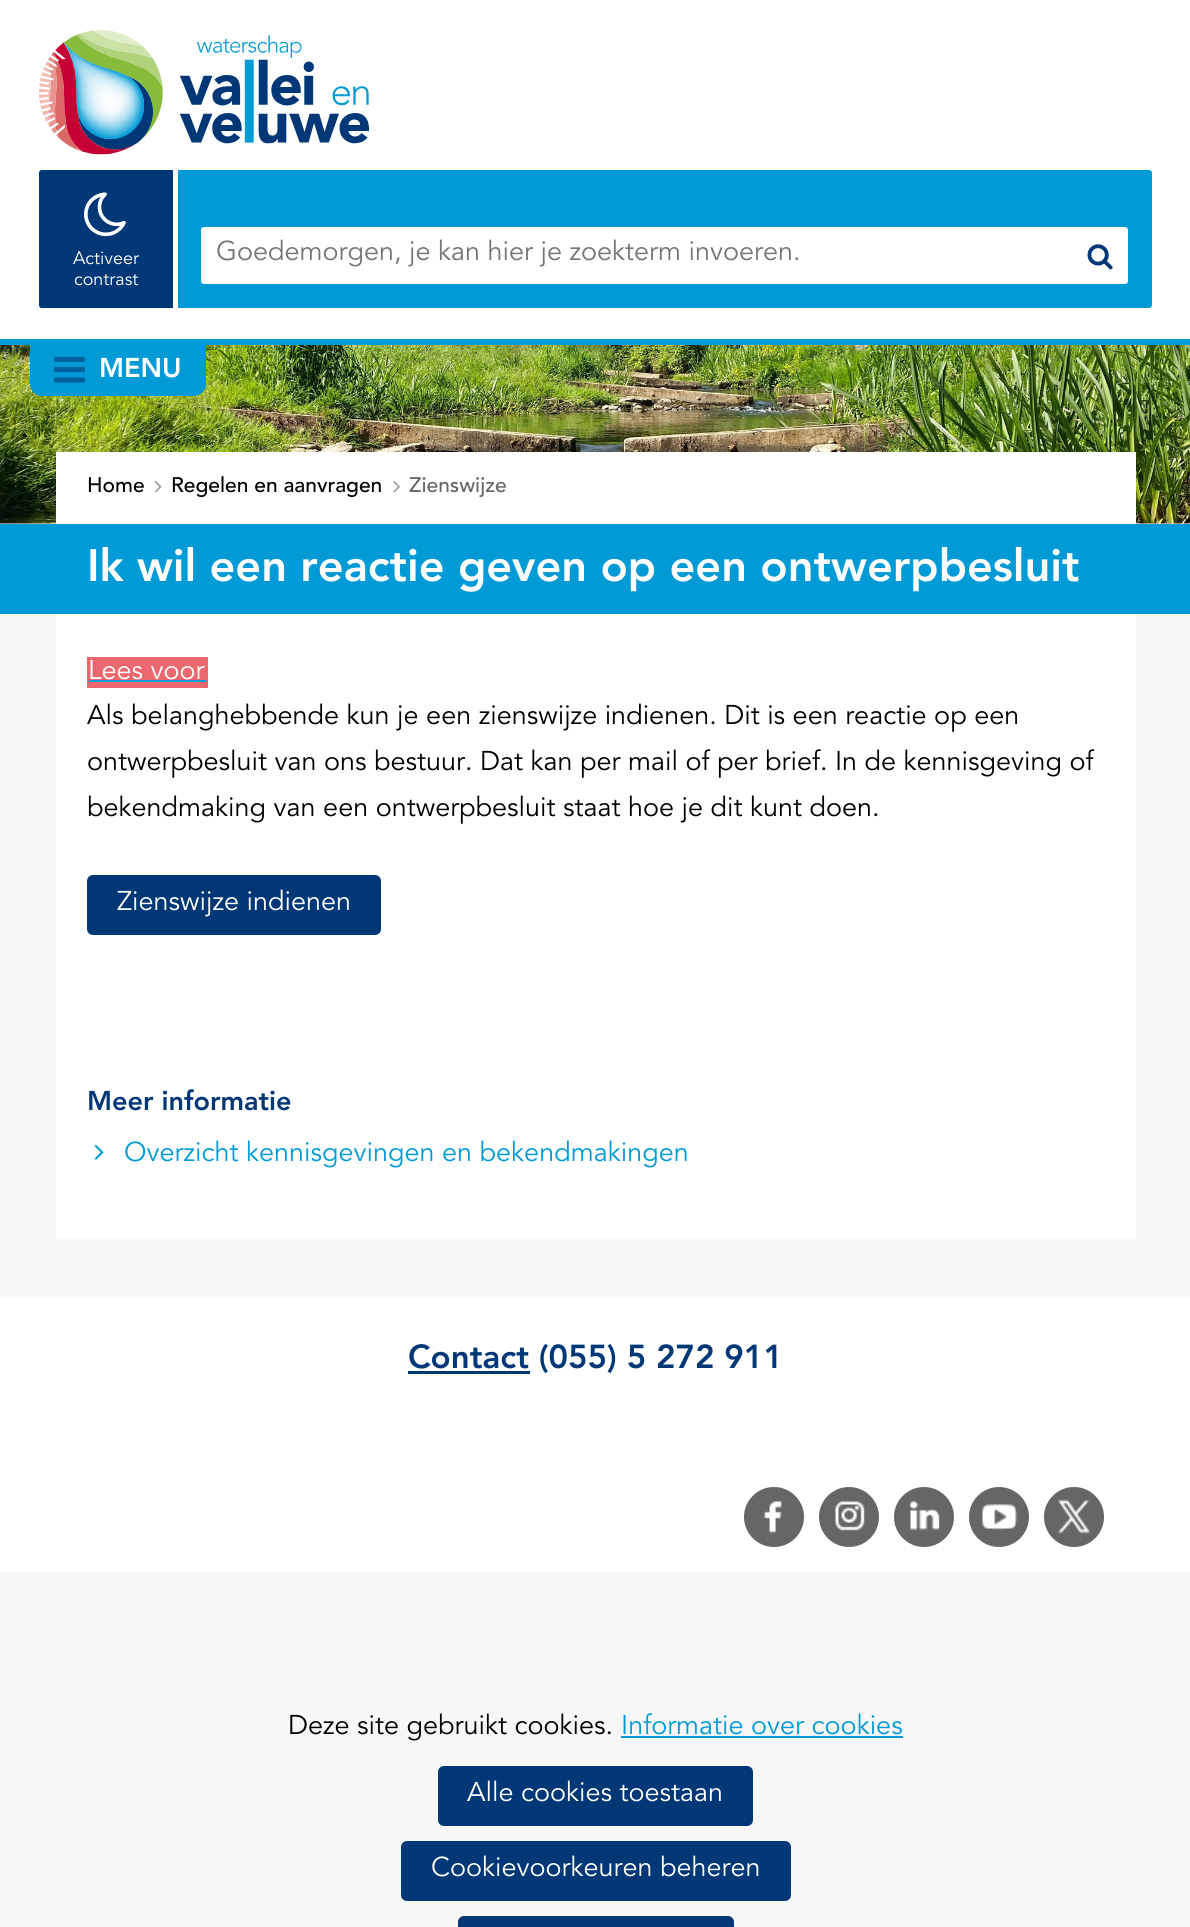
#include <cairo.h>
#include <math.h>
#include <stddef.h>

typedef struct { const char *family; double size; int italic, bold; unsigned color; } style_t;
static cairo_t *ctx;

static void ink(unsigned color) {
    cairo_set_source_rgb(ctx, (color >> 16) / 255.0, (color >> 8 & 255) / 255.0, (color & 255) / 255.0);
}

static void write(double x, double y, const char *s, const style_t *st) {
    cairo_select_font_face(ctx, st->family, st->italic ? CAIRO_FONT_SLANT_ITALIC : CAIRO_FONT_SLANT_NORMAL,
        st->bold ? CAIRO_FONT_WEIGHT_BOLD : CAIRO_FONT_WEIGHT_NORMAL);
    cairo_set_font_size(ctx, st->size);
    ink(st->color);
    cairo_move_to(ctx, x, y);
    cairo_show_text(ctx, s);
}

static void block(double x, double y, double w, double h, unsigned color) {
    ink(color);
    cairo_rectangle(ctx, x, y, w, h);
    cairo_fill(ctx);
}

static void round_path(double x, double y, double w, double h, double r) {
    cairo_new_sub_path(ctx);
    cairo_arc(ctx, x + w - r, y + h - r, r, 0, M_PI / 2);
    cairo_arc(ctx, x + r, y + h - r, r, M_PI / 2, M_PI);
    cairo_arc(ctx, x + r, y + r, r, M_PI, 1.5 * M_PI);
    cairo_arc(ctx, x + w - r, y + r, r, 1.5 * M_PI, 2 * M_PI);
    cairo_close_path(ctx);
}

static void paste(const char *path, double x, double y, double w, double h) {
    cairo_surface_t *image = cairo_image_surface_create_from_png(path);
    cairo_save(ctx);
    cairo_set_source_surface(ctx, image, x, y);
    cairo_rectangle(ctx, x, y, w, h);
    cairo_fill(ctx);
    cairo_restore(ctx);
    cairo_surface_destroy(image);
}

static const style_t s1 = {"Avenir", 18, 0, 0, 0xffffff};
static const style_t s2 = {"Avenir", 27, 0, 0, 0x757575};
static const style_t s3 = {"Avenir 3", 27, 0, 0, 0xffffff};
static const style_t s4 = {"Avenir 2", 21, 0, 0, 0x000000};
static const style_t s5 = {"Avenir 2", 21, 0, 0, 0x666666};
static const style_t s6 = {"Avenir 3", 45, 0, 0, 0xffffff};
static const style_t s7 = {"Avenir", 27, 0, 0, 0xffffff};
static const style_t s8 = {"Avenir", 27, 0, 0, 0x000000};
static const style_t s9 = {"Avenir 3", 27, 0, 0, 0x003776};
static const style_t s10 = {"Avenir", 27, 0, 0, 0x009bd7};
static const style_t s11 = {"Avenir 3", 33, 0, 0, 0x003776};

int main(void) {
    cairo_surface_t *surface = cairo_image_surface_create(CAIRO_FORMAT_RGB24, 1190, 1927);
    ctx = cairo_create(surface);
    cairo_font_options_t *options = cairo_font_options_create();
    cairo_font_options_set_hint_metrics(options, CAIRO_HINT_METRICS_OFF);
    cairo_font_options_set_hint_style(options, CAIRO_HINT_STYLE_NONE);
    cairo_set_font_options(ctx, options);
    cairo_set_miter_limit(ctx, 4);
    ink(0xf7f7f7);
    cairo_paint(ctx);
    block(0, 0, 1190, 339, 0xffffff);
    paste("pic1.png", 39, 30, 330, 125);
    ink(0x009bd7);
    round_path(39, 170, 1113, 138, 3);
    cairo_fill(ctx);
    ink(0x003776);
    cairo_new_path(ctx);
    cairo_move_to(ctx, 42, 170);
    cairo_line_to(ctx, 177, 170);
    cairo_line_to(ctx, 177, 308);
    cairo_line_to(ctx, 42, 308);
    cairo_curve_to(ctx, 40.5, 308, 39, 306.5, 39, 305);
    cairo_line_to(ctx, 39, 173);
    cairo_curve_to(ctx, 39, 171.5, 40.5, 170, 42, 170);
    cairo_close_path(ctx);
    cairo_fill(ctx);
    block(173, 170, 5, 138, 0xffffff);
    paste("pic2.png", 84, 192, 42, 45);
    write(73, 264, "Activeer", &s1);
    write(74, 285, "contrast", &s1);
    round_path(201, 227, 927, 57, 3);
    cairo_fill(ctx);
    write(216, 260, "Goedemorgen, je kan hier je zoekterm invoeren.", &s2);
    paste("pic3.png", 1087, 244, 26, 26);
    block(0, 339, 1190, 6, 0x009bd7);
    paste("pic5.png", 0, 345, 1190, 179);
    cairo_new_path(ctx);
    cairo_move_to(ctx, 30, 345);
    cairo_line_to(ctx, 206, 345);
    cairo_line_to(ctx, 206, 384);
    cairo_curve_to(ctx, 206, 390.5, 200.5, 396, 194, 396);
    cairo_line_to(ctx, 42, 396);
    cairo_curve_to(ctx, 35.5, 396, 30, 390.5, 30, 384);
    cairo_close_path(ctx);
    cairo_fill(ctx);
    paste("pic4.png", 54, 356, 31, 27);
    write(99, 377, "MENU", &s3);
    block(56, 452, 1080, 786, 0xffffff);
    write(87, 492, "Home", &s4);
    paste("pic6.png", 154, 481, 8, 11);
    write(171, 492, "Regelen en aanvragen", &s4);
    paste("pic7.png", 393, 481, 7, 11);
    write(409, 492, "Zienswijze", &s5);
    block(0, 524, 1190, 90, 0x009bd7);
    write(87, 581, "Ik wil een reactie geven op een ontwerpbesluit", &s6);
    block(87, 657, 119, 31, 0xec676e);
    write(88, 679, "Lees voor", &s7);
    block(206, 657, 2, 31, 0xec676e);
    block(89, 680, 117, 2, 0x009bd7);
    write(87, 724, "Als belanghebbende kun je een zienswijze indienen. Dit is een reactie op een", &s8);
    write(87, 770, "ontwerpbesluit van ons bestuur. Dat kan per mail of per brief. In de kennisgeving of", &s8);
    write(87, 816, "bekendmaking van een ontwerpbesluit staat hoe je dit kunt doen.", &s8);
    ink(0x003776);
    round_path(87, 875, 294, 60, 6);
    cairo_fill(ctx);
    write(117, 910, "Zienswijze indienen", &s7);
    write(87, 1110, "Meer informatie", &s9);
    paste("pic8.png", 94, 1144, 10, 16);
    write(124, 1161, "Overzicht kennisgevingen en bekendmakingen", &s10);
    block(0, 1298, 1190, 274, 0xffffff);
    block(408, 1371, 122, 3, 0x003776);
    write(408, 1368, "Contact (055) 5 272 911", &s11);
    ink(0x666666);
    cairo_new_path(ctx);
    cairo_arc(ctx, 774, 1517, 30, 0, 2 * M_PI);
    cairo_fill(ctx);
    paste("pic9.png", 763, 1501, 19, 33);
    cairo_arc(ctx, 849, 1517, 30, 0, 2 * M_PI);
    cairo_fill(ctx);
    paste("pic10.png", 835, 1501, 30, 30);
    cairo_arc(ctx, 924, 1517, 30, 0, 2 * M_PI);
    cairo_fill(ctx);
    paste("pic11.png", 909, 1501, 31, 30);
    cairo_arc(ctx, 999, 1517, 30, 0, 2 * M_PI);
    cairo_fill(ctx);
    paste("pic12.png", 982, 1504, 36, 26);
    cairo_arc(ctx, 1074, 1517, 30, 0, 2 * M_PI);
    cairo_fill(ctx);
    paste("pic13.png", 1057, 1499, 34, 35);
    write(288, 1734, "Deze site gebruikt cookies.", &s8);
    write(621, 1734, "Informatie over cookies", &s10);
    block(621, 1736, 282, 2, 0x009bd7);
    ink(0x003776);
    round_path(438, 1766, 315, 60, 6);
    cairo_fill(ctx);
    write(467, 1801, "Alle cookies toestaan", &s7);
    ink(0x003776);
    round_path(401, 1841, 390, 60, 6);
    cairo_fill(ctx);
    write(431, 1876, "Cookievoorkeuren beheren", &s7);
    ink(0x003776);
    round_path(458, 1916, 276, 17, 6);
    cairo_fill(ctx);
    cairo_surface_write_to_png(surface, "screenshot.png");
    cairo_font_options_destroy(options);
    cairo_destroy(ctx);
    cairo_surface_destroy(surface);
    return 0;
}
